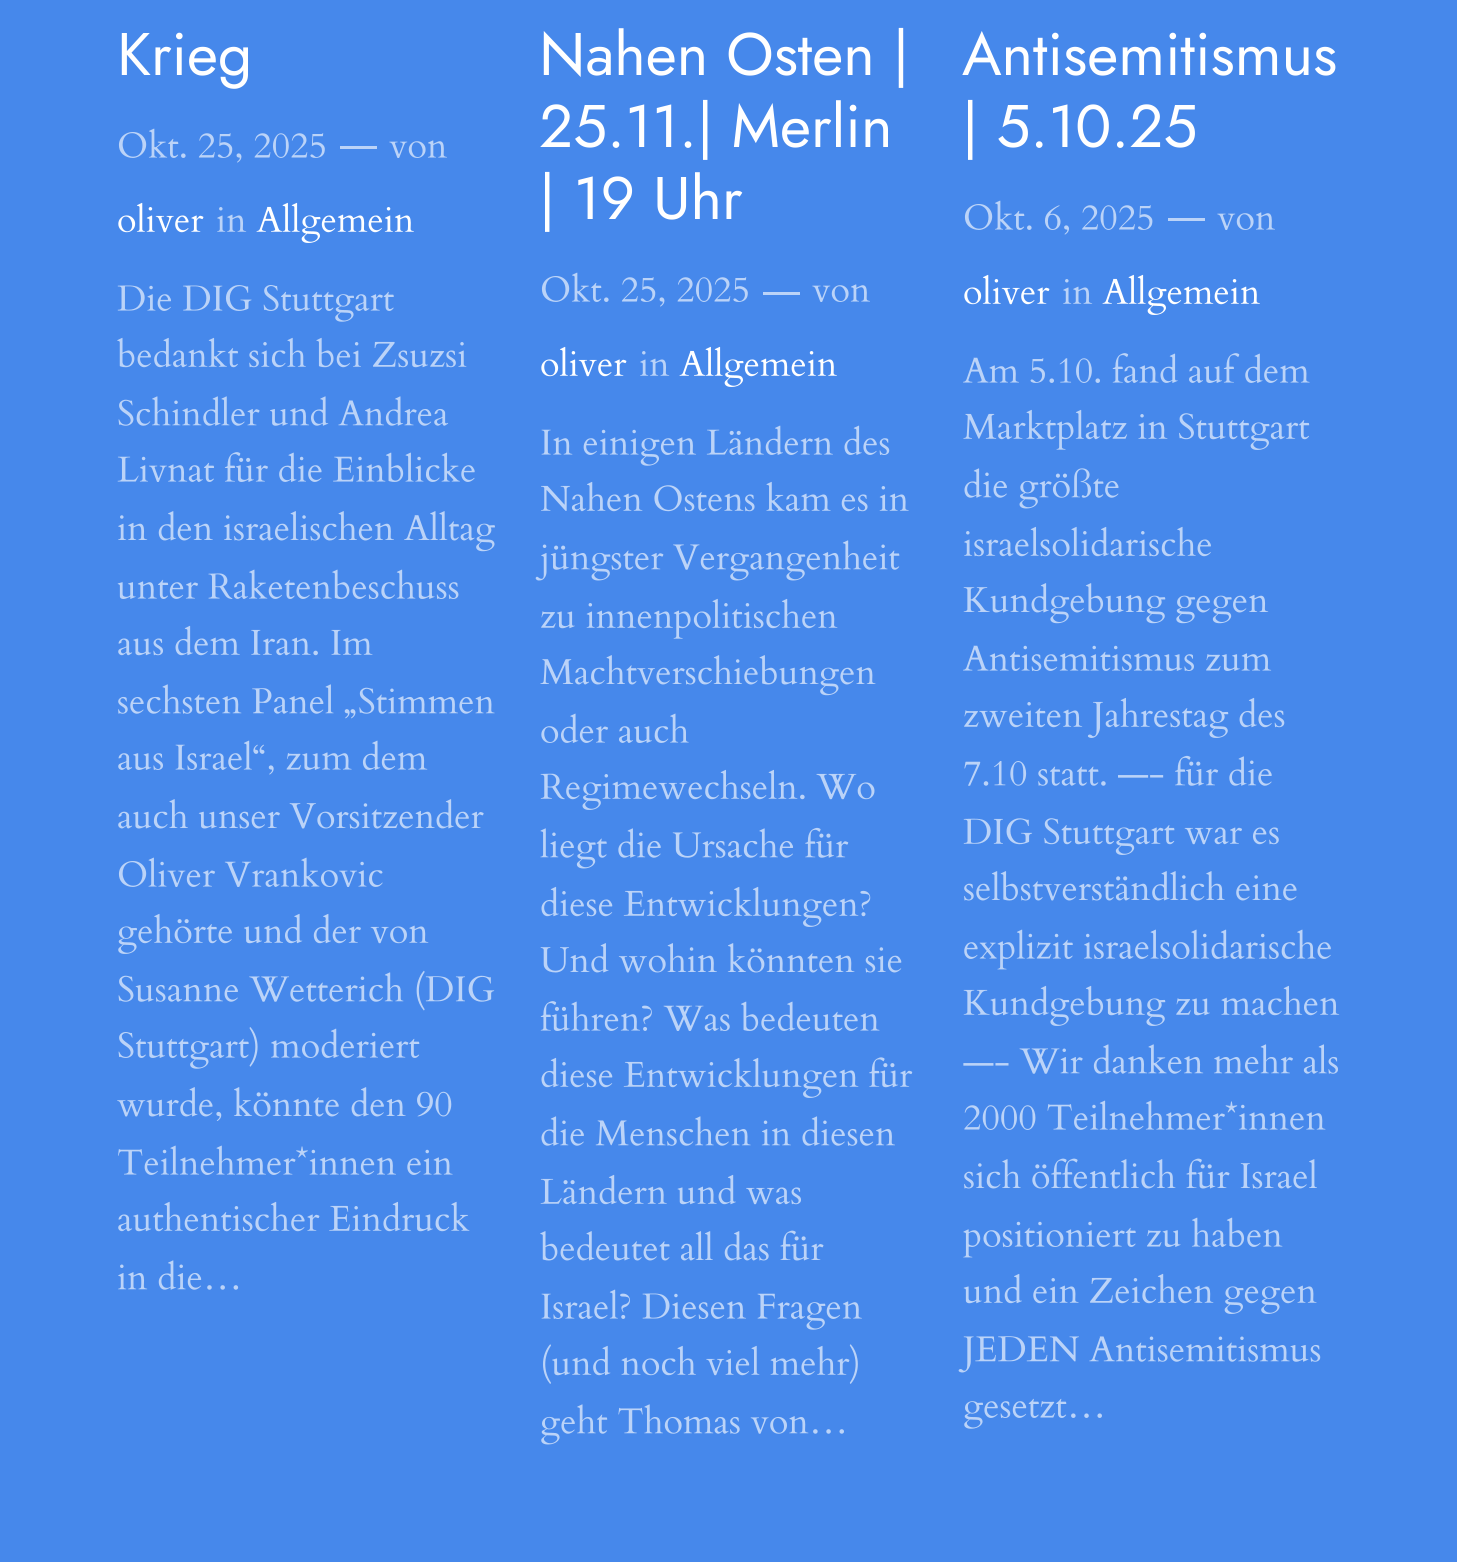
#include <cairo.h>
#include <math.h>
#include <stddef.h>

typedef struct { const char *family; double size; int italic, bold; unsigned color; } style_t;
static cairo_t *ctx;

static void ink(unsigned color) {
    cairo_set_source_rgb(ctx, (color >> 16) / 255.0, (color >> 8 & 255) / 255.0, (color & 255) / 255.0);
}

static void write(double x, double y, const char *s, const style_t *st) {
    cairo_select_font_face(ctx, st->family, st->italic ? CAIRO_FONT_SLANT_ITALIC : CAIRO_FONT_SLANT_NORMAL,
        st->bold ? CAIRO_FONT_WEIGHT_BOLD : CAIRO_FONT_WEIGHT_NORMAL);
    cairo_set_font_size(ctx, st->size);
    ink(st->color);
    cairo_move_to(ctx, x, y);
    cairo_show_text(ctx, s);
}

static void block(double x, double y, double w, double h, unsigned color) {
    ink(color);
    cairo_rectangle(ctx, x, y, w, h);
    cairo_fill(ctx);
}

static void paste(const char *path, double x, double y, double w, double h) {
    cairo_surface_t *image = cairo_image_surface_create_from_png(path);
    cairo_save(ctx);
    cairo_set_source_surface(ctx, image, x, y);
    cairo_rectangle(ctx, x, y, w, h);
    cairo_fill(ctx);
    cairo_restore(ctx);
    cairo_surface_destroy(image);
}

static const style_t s1 = {"Jost", 60, 0, 0, 0xffffff};

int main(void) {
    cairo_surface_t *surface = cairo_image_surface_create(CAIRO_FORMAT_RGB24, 1457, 1562);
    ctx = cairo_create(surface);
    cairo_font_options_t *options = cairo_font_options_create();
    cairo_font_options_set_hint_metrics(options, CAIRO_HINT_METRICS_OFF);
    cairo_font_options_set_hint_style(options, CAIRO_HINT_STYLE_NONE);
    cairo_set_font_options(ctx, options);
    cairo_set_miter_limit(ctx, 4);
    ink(0x4688eb);
    cairo_paint(ctx);
    write(117, 75, "Krieg", &s1);
    paste("pic1.png", 118, 128, 207, 35);
    block(340, 146, 37, 3, 0xbbd3f8);
    paste("pic2.png", 389, 140, 58, 18);
    paste("pic3.png", 118, 202, 86, 31);
    paste("pic4.png", 217, 207, 30, 25);
    paste("pic5.png", 256, 202, 158, 41);
    paste("pic6.png", 117, 285, 277, 37);
    paste("pic7.png", 117, 337, 350, 31);
    paste("pic8.png", 118, 396, 331, 30);
    paste("pic9.png", 117, 452, 358, 30);
    paste("pic10.png", 118, 511, 377, 41);
    paste("pic11.png", 117, 569, 342, 30);
    paste("pic12.png", 118, 625, 255, 31);
    paste("pic13.png", 118, 684, 377, 35);
    paste("pic14.png", 118, 740, 310, 35);
    paste("pic15.png", 118, 799, 366, 30);
    paste("pic16.png", 118, 857, 265, 30);
    paste("pic17.png", 118, 913, 311, 41);
    paste("pic18.png", 118, 970, 377, 41);
    paste("pic19.png", 118, 1027, 302, 42);
    paste("pic20.png", 117, 1087, 335, 34);
    paste("pic21.png", 118, 1145, 335, 30);
    paste("pic22.png", 118, 1201, 352, 31);
    paste("pic23.png", 118, 1260, 121, 30);
    write(539, 75, "Nahen Osten |", &s1);
    write(539, 147, "25.11.| Merlin", &s1);
    write(539, 219, "| 19 Uhr", &s1);
    paste("pic1.png", 541, 272, 207, 35);
    block(763, 292, 37, 3, 0xbbd3f8);
    paste("pic2.png", 812, 284, 58, 18);
    paste("pic3.png", 541, 346, 86, 31);
    paste("pic4.png", 640, 351, 30, 25);
    paste("pic5.png", 679, 346, 158, 41);
    paste("pic24.png", 541, 425, 349, 41);
    paste("pic25.png", 541, 481, 368, 31);
    paste("pic26.png", 535, 540, 365, 41);
    paste("pic27.png", 541, 598, 297, 41);
    paste("pic28.png", 540, 655, 336, 41);
    paste("pic29.png", 541, 713, 148, 30);
    paste("pic30.png", 540, 769, 335, 41);
    paste("pic31.png", 540, 827, 309, 42);
    paste("pic32.png", 541, 886, 330, 41);
    paste("pic33.png", 540, 943, 362, 30);
    paste("pic34.png", 540, 1001, 340, 30);
    paste("pic35.png", 541, 1057, 372, 41);
    paste("pic36.png", 541, 1116, 354, 30);
    paste("pic37.png", 540, 1174, 261, 31);
    paste("pic38.png", 540, 1230, 284, 31);
    paste("pic39.png", 541, 1289, 321, 41);
    paste("pic40.png", 543, 1344, 315, 40);
    paste("pic41.png", 541, 1404, 303, 41);
    write(962, 75, "Antisemitismus", &s1);
    write(962, 147, "| 5.10.25", &s1);
    paste("pic42.png", 964, 200, 189, 35);
    block(1168, 218, 37, 3, 0xbbd3f8);
    paste("pic2.png", 1217, 212, 58, 18);
    paste("pic3.png", 964, 274, 86, 31);
    paste("pic4.png", 1063, 279, 30, 25);
    paste("pic5.png", 1102, 274, 158, 41);
    paste("pic43.png", 963, 353, 347, 30);
    paste("pic44.png", 963, 409, 347, 41);
    paste("pic45.png", 964, 468, 155, 41);
    paste("pic46.png", 964, 526, 247, 31);
    paste("pic47.png", 963, 583, 306, 41);
    paste("pic48.png", 963, 645, 309, 26);
    paste("pic49.png", 964, 697, 321, 41);
    paste("pic50.png", 964, 755, 308, 31);
    paste("pic51.png", 963, 818, 316, 37);
    paste("pic52.png", 964, 871, 333, 30);
    paste("pic53.png", 964, 929, 367, 41);
    paste("pic54.png", 963, 985, 377, 41);
    paste("pic55.png", 963, 1044, 375, 30);
    paste("pic56.png", 964, 1100, 362, 30);
    paste("pic57.png", 964, 1158, 353, 31);
    paste("pic58.png", 963, 1217, 320, 41);
    paste("pic59.png", 963, 1273, 354, 41);
    paste("pic60.png", 958, 1336, 363, 37);
    paste("pic61.png", 964, 1398, 138, 31);
    cairo_surface_write_to_png(surface, "screenshot.png");
    cairo_font_options_destroy(options);
    cairo_destroy(ctx);
    cairo_surface_destroy(surface);
    return 0;
}
